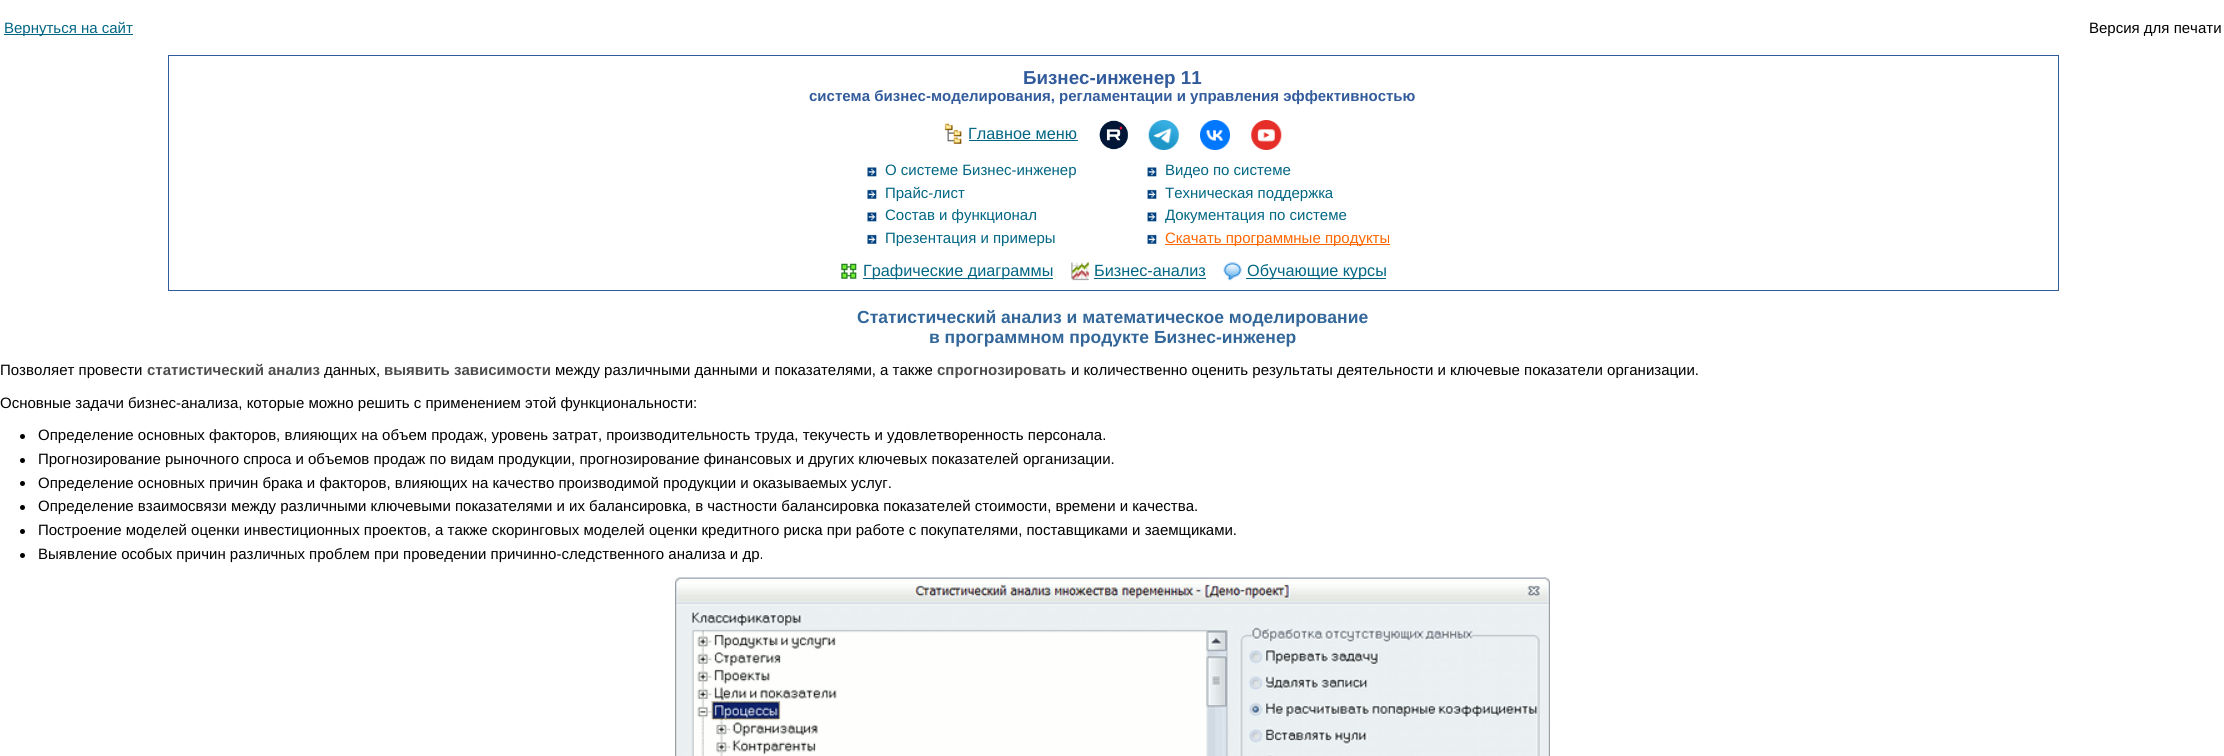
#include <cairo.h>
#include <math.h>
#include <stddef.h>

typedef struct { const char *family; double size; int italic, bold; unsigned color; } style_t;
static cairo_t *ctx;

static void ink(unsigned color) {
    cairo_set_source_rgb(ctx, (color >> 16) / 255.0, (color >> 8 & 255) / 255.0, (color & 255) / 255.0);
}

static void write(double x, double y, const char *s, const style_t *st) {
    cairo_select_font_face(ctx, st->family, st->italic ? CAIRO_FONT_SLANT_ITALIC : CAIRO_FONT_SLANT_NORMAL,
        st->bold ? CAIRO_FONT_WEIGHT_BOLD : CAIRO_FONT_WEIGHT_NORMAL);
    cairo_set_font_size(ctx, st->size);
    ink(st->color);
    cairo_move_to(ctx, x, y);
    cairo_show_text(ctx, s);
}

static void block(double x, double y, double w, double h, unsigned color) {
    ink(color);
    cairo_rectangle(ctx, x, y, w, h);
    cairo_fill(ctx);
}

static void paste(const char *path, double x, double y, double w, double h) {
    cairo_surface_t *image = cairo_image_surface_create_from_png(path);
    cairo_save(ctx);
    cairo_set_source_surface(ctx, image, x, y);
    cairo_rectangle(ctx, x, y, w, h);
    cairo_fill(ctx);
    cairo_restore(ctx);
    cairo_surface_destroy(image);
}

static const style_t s1 = {"Liberation Sans", 15, 0, 0, 0x016683};
static const style_t s2 = {"Liberation Sans", 15, 0, 0, 0x000000};
static const style_t s3 = {"Liberation Sans", 18.75, 0, 1, 0x325b9b};
static const style_t s4 = {"Liberation Sans", 15, 0, 1, 0x325b9b};
static const style_t s5 = {"Liberation Sans", 16.25, 0, 0, 0x016683};
static const style_t s6 = {"Liberation Sans", 15, 0, 0, 0xff6600};
static const style_t s7 = {"Liberation Sans", 17.5, 0, 1, 0x336699};
static const style_t s8 = {"Liberation Sans", 15, 0, 1, 0x4d4d4d};

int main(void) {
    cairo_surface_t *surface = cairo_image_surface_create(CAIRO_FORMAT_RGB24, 2224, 756);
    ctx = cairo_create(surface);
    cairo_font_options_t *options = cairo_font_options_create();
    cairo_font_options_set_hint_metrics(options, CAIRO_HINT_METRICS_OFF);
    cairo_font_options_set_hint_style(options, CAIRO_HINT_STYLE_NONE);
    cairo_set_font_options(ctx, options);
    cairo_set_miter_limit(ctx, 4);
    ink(0xffffff);
    cairo_paint(ctx);
    block(4, 34, 129, 1, 0x016683);
    write(4, 33, "Вернуться на сайт", &s1);
    write(2089, 33, "Версия для печати", &s2);
    block(168, 55, 1891, 1, 0x325b9b);
    block(2058, 55, 1, 236, 0x325b9b);
    block(168, 290, 1891, 1, 0x325b9b);
    block(168, 55, 1, 236, 0x325b9b);
    write(1023, 84, "Бизнес-инженер 11", &s3);
    write(809, 101, "cистема бизнес-моделирования, регламентации и управления эффективностью", &s4);
    paste("pic1.png", 944, 123, 18, 21);
    write(968, 139, "Главное меню", &s5);
    block(969, 140, 109, 1, 0x016683);
    paste("pic2.png", 1099, 120, 29, 30);
    paste("pic3.png", 1148, 120, 31, 30);
    paste("pic4.png", 1200, 120, 30, 30);
    paste("pic5.png", 1251, 120, 31, 30);
    paste("pic6.png", 867, 167, 10, 10);
    write(885, 175, "О системе Бизнес-инженер", &s1);
    paste("pic7.png", 867, 189, 10, 10);
    write(885, 198, "Прайс-лист", &s1);
    paste("pic6.png", 867, 212, 10, 10);
    write(885, 220, "Состав и функционал", &s1);
    paste("pic7.png", 867, 234, 10, 10);
    write(885, 243, "Презентация и примеры", &s1);
    paste("pic8.png", 1147, 167, 10, 10);
    write(1165, 175, "Видео по системе", &s1);
    paste("pic9.png", 1147, 189, 10, 10);
    write(1165, 198, "Техническая поддержка", &s1);
    paste("pic8.png", 1147, 212, 10, 10);
    write(1165, 220, "Документация по системе", &s1);
    paste("pic9.png", 1147, 234, 10, 10);
    block(1165, 244, 225, 1, 0xff6600);
    write(1165, 243, "Скачать программные продукты", &s6);
    paste("pic10.png", 841, 263, 16, 16);
    block(863, 278, 190, 1, 0x016683);
    write(863, 276, "Графические диаграммы", &s5);
    paste("pic11.png", 1071, 262, 18, 19);
    write(1094, 276, "Бизнес-анализ", &s5);
    block(1094, 278, 112, 1, 0x016683);
    paste("pic12.png", 1223, 262, 19, 19);
    block(1246, 278, 140, 1, 0x016683);
    write(1247, 276, "Обучающие курсы", &s5);
    write(857, 323, "Статистический анализ и математическое моделирование", &s7);
    write(929, 343, "в программном продукте Бизнес-инженер", &s7);
    write(0, 375, "Позволяет провести", &s2);
    write(147, 375, "статистический анализ", &s8);
    write(324, 375, "данных,", &s2);
    write(384, 375, "выявить зависимости", &s8);
    write(555, 375, "между различными данными и показателями, а также", &s2);
    write(937, 375, "спрогнозировать", &s8);
    write(1071, 375, "и количественно оценить результаты деятельности и ключевые показатели организации.", &s2);
    write(0, 408, "Основные задачи бизнес-анализа, которые можно решить с применением этой функциональности:", &s2);
    cairo_new_path(ctx);
    cairo_arc(ctx, 22.5, 436.5, 2.5, 0, 2 * M_PI);
    cairo_fill(ctx);
    write(38, 440, "Определение основных факторов, влияющих на объем продаж, уровень затрат, производительность труда, текучесть и удовлетворенность персонала.", &s2);
    cairo_new_path(ctx);
    cairo_arc(ctx, 22.5, 460.5, 2.5, 0, 2 * M_PI);
    cairo_fill(ctx);
    write(38, 464, "Прогнозирование рыночного спроса и объемов продаж по видам продукции, прогнозирование финансовых и других ключевых показателей организации.", &s2);
    cairo_new_path(ctx);
    cairo_arc(ctx, 22.5, 483.5, 2.5, 0, 2 * M_PI);
    cairo_fill(ctx);
    write(38, 488, "Определение основных причин брака и факторов, влияющих на качество производимой продукции и оказываемых услуг.", &s2);
    cairo_new_path(ctx);
    cairo_arc(ctx, 22.5, 507.5, 2.5, 0, 2 * M_PI);
    cairo_fill(ctx);
    write(38, 511, "Определение взаимосвязи между различными ключевыми показателями и их балансировка, в частности балансировка показателей стоимости, времени и качества.", &s2);
    cairo_new_path(ctx);
    cairo_arc(ctx, 22.5, 531.5, 2.5, 0, 2 * M_PI);
    cairo_fill(ctx);
    write(38, 535, "Построение моделей оценки инвестиционных проектов, а также скоринговых моделей оценки кредитного риска при работе с покупателями, поставщиками и заемщиками.", &s2);
    cairo_new_path(ctx);
    cairo_arc(ctx, 22.5, 555.5, 2.5, 0, 2 * M_PI);
    cairo_fill(ctx);
    write(38, 559, "Выявление особых причин различных проблем при проведении причинно-следственного анализа и др.", &s2);
    paste("pic13.png", 675, 577, 875, 179);
    cairo_surface_write_to_png(surface, "screenshot.png");
    cairo_font_options_destroy(options);
    cairo_destroy(ctx);
    cairo_surface_destroy(surface);
    return 0;
}
